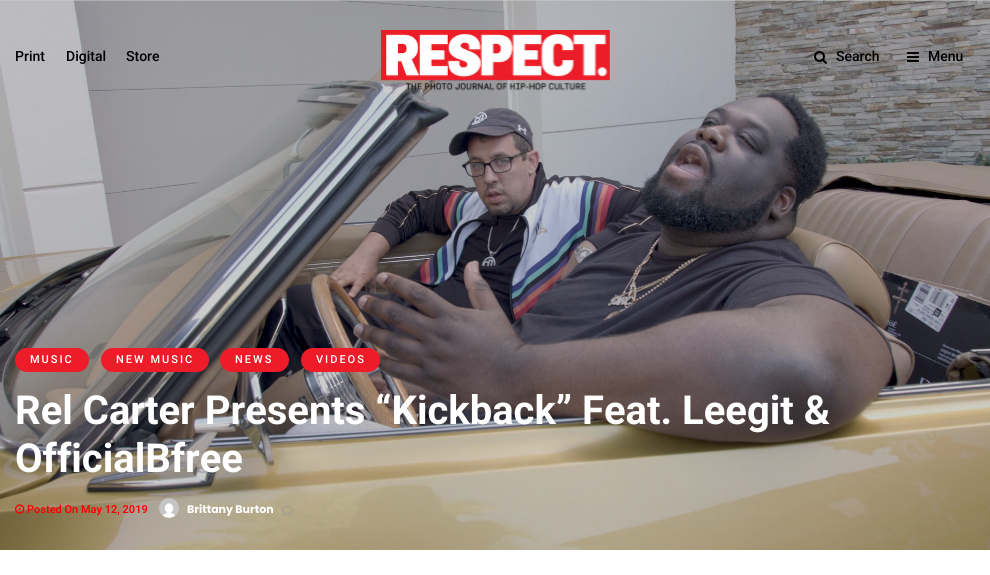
#include <cairo.h>
#include <math.h>
#include <stddef.h>

typedef struct { const char *family; double size; int italic, bold; unsigned color; } style_t;
static cairo_t *ctx;

static void ink(unsigned color) {
    cairo_set_source_rgb(ctx, (color >> 16) / 255.0, (color >> 8 & 255) / 255.0, (color & 255) / 255.0);
}

static void write(double x, double y, const char *s, const style_t *st) {
    cairo_select_font_face(ctx, st->family, st->italic ? CAIRO_FONT_SLANT_ITALIC : CAIRO_FONT_SLANT_NORMAL,
        st->bold ? CAIRO_FONT_WEIGHT_BOLD : CAIRO_FONT_WEIGHT_NORMAL);
    cairo_set_font_size(ctx, st->size);
    ink(st->color);
    cairo_move_to(ctx, x, y);
    cairo_show_text(ctx, s);
}

static void write_spaced(double x, double y, const char *s, double letter, double word) {
    cairo_move_to(ctx, x, y);
    while (*s) {
        char ch[5] = {0};
        int n = 0;
        do ch[n++] = *s++; while ((*s & 0xC0) == 0x80);
        cairo_show_text(ctx, ch);
        cairo_rel_move_to(ctx, letter + word * (*ch == ' '), 0);
    }
}

static void block(double x, double y, double w, double h, unsigned color) {
    ink(color);
    cairo_rectangle(ctx, x, y, w, h);
    cairo_fill(ctx);
}

static void round_path(double x, double y, double w, double h, double r) {
    cairo_new_sub_path(ctx);
    cairo_arc(ctx, x + w - r, y + h - r, r, 0, M_PI / 2);
    cairo_arc(ctx, x + r, y + h - r, r, M_PI / 2, M_PI);
    cairo_arc(ctx, x + r, y + r, r, M_PI, 1.5 * M_PI);
    cairo_arc(ctx, x + w - r, y + r, r, 1.5 * M_PI, 2 * M_PI);
    cairo_close_path(ctx);
}

static void paste(const char *path, double x, double y, double w, double h) {
    cairo_surface_t *image = cairo_image_surface_create_from_png(path);
    cairo_save(ctx);
    cairo_set_source_surface(ctx, image, x, y);
    cairo_rectangle(ctx, x, y, w, h);
    cairo_fill(ctx);
    cairo_restore(ctx);
    cairo_surface_destroy(image);
}

static const style_t s1 = {"Roboto Medium", 14, 0, 0, 0x000000};
static const style_t s2 = {"Roboto", 40, 0, 1, 0xffffff};
static const style_t s3 = {"Roboto SemiBold", 11, 0, 0, 0xff0000};
static const style_t s4 = {"Poppins", 11, 0, 1, 0xffffff};

int main(void) {
    cairo_surface_t *surface = cairo_image_surface_create(CAIRO_FORMAT_RGB24, 990, 575);
    ctx = cairo_create(surface);
    cairo_font_options_t *options = cairo_font_options_create();
    cairo_font_options_set_hint_metrics(options, CAIRO_HINT_METRICS_OFF);
    cairo_font_options_set_hint_style(options, CAIRO_HINT_STYLE_NONE);
    cairo_set_font_options(ctx, options);
    cairo_set_miter_limit(ctx, 4);
    ink(0xffffff);
    cairo_paint(ctx);
    block(0, 0, 990, 1, 0xcccccc);
    paste("pic4.png", 0, 0, 990, 550);
    paste("pic1.png", 381, 30, 229, 61);
    write(15, 61, "Print", &s1);
    write(66, 61, "Digital", &s1);
    write(126, 61, "Store", &s1);
    paste("pic2.png", 814, 51, 13, 13);
    write(836, 61, "Search", &s1);
    paste("pic3.png", 907, 52, 12, 10);
    write(928, 61, "Menu", &s1);
    ink(0xee1c29);
    round_path(15, 348, 74, 24, 12);
    cairo_fill(ctx);
    cairo_set_font_size(ctx, 11);
    ink(0xffffff);
    write_spaced(30, 363, "MUSIC", 2, 0);
    ink(0xee1c29);
    round_path(101, 348, 108, 24, 12);
    cairo_fill(ctx);
    ink(0xffffff);
    write_spaced(116, 363, "NEW MUSIC", 2, 0);
    ink(0xee1c29);
    round_path(220, 348, 69, 24, 12);
    cairo_fill(ctx);
    ink(0xffffff);
    write_spaced(235, 363, "NEWS", 2, 0);
    ink(0xee1c29);
    round_path(301, 348, 79, 24, 12);
    cairo_fill(ctx);
    ink(0xffffff);
    write_spaced(316, 363, "VIDEOS", 2, 0);
    write(15, 424, "Rel Carter Presents “Kickback” Feat. Leegit &", &s2);
    write(15, 472, "OfficialBfree", &s2);
    paste("pic5.png", 15, 504, 10, 10);
    write(27, 513, "Posted On May 12, 2019", &s3);
    paste("pic6.png", 159, 498, 20, 20);
    write(187, 513, "Brittany Burton", &s4);
    paste("pic7.png", 282, 506, 11, 10);
    cairo_surface_write_to_png(surface, "screenshot.png");
    cairo_font_options_destroy(options);
    cairo_destroy(ctx);
    cairo_surface_destroy(surface);
    return 0;
}
